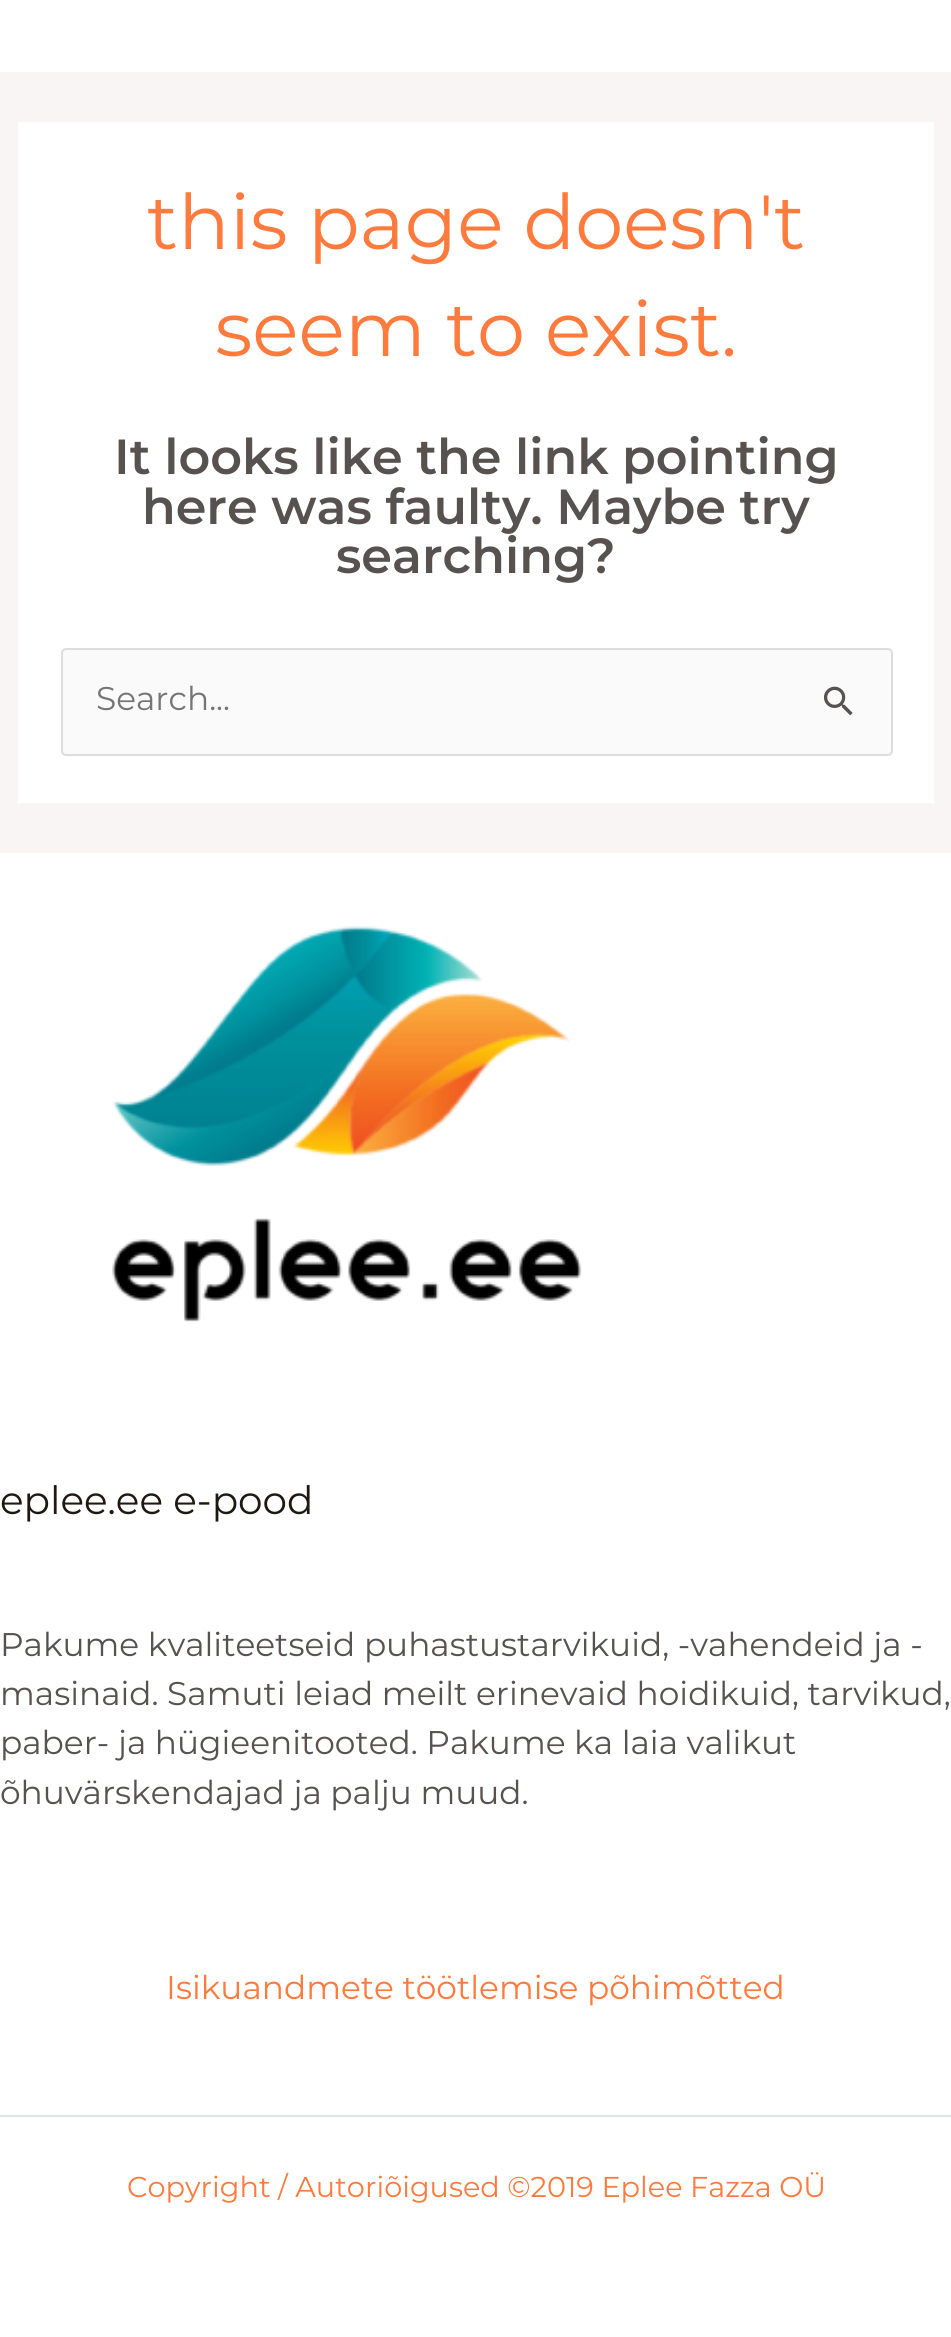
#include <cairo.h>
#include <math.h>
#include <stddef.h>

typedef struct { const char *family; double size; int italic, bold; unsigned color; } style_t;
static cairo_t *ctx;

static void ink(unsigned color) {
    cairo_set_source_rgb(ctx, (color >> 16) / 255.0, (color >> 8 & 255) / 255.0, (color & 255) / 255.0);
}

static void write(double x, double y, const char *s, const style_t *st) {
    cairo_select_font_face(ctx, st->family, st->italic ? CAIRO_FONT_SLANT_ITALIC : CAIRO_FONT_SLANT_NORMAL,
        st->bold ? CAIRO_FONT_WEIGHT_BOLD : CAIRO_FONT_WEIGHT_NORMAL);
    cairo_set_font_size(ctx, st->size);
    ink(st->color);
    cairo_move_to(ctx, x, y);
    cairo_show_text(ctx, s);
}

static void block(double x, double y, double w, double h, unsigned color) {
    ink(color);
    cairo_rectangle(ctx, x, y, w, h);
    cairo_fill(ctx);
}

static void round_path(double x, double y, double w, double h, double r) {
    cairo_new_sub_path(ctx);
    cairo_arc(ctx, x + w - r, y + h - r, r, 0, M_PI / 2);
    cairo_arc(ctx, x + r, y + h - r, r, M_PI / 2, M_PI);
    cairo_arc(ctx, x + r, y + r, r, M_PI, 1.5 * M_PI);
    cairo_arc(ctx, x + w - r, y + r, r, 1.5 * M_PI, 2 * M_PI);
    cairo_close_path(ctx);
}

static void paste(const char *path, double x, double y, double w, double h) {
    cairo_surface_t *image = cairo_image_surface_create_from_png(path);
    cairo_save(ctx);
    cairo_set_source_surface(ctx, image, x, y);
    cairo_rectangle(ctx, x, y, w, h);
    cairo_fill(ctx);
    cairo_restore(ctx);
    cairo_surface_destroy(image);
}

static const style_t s1 = {"Montserrat", 76.5, 0, 0, 0xff7a3d};
static const style_t s2 = {"Montserrat SemiBold", 49.25, 0, 0, 0x575250};
static const style_t s3 = {"Montserrat", 32.8, 0, 0, 0x757575};
static const style_t s4 = {"Montserrat", 39, 0, 0, 0x1e1810};
static const style_t s5 = {"Montserrat", 32.8, 0, 0, 0x575250};
static const style_t s6 = {"Montserrat", 32.8, 0, 0, 0xff7a3d};
static const style_t s7 = {"Montserrat", 28.75, 0, 0, 0xff7a3d};

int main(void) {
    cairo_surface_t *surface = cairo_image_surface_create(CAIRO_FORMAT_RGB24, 951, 2337);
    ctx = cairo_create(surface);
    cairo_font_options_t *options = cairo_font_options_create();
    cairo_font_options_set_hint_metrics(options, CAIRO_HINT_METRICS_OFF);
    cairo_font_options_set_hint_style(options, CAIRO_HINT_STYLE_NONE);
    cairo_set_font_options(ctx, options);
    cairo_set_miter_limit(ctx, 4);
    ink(0xf8f5f4);
    cairo_paint(ctx);
    block(0, 0, 951, 72, 0xffffff);
    block(18, 122, 916, 681, 0xffffff);
    write(147, 249, "this page doesn't", &s1);
    write(215, 356, "seem to exist.", &s1);
    write(114, 474, "It looks like the link pointing", &s2);
    write(142, 524, "here was faulty. Maybe try", &s2);
    write(336, 573, "searching?", &s2);
    ink(0xfafafa);
    round_path(62, 649, 830, 106, 4);
    cairo_fill_preserve(ctx);
    ink(0xdddddd);
    cairo_stroke(ctx);
    write(96, 710, "Search...", &s3);
    paste("pic1.png", 823, 686, 30, 30);
    block(0, 853, 951, 1484, 0xffffff);
    paste("pic2.png", 112, 926, 470, 396);
    write(0, 1514, "eplee.ee e-pood", &s4);
    write(0, 1656, "Pakume kvaliteetseid puhastustarvikuid, -vahendeid ja -", &s5);
    write(0, 1705, "masinaid. Samuti leiad meilt erinevaid hoidikuid, tarvikud,", &s5);
    write(0, 1754, "paber- ja hügieenitooted. Pakume ka laia valikut", &s5);
    write(0, 1804, "õhuvärskendajad ja palju muud.", &s5);
    write(166, 1999, "Isikuandmete töötlemise põhimõtted", &s6);
    block(0, 2115, 951, 2, 0xdbe8eb);
    write(127, 2197, "Copyright / Autoriõigused ©2019 Eplee Fazza OÜ", &s7);
    cairo_surface_write_to_png(surface, "screenshot.png");
    cairo_font_options_destroy(options);
    cairo_destroy(ctx);
    cairo_surface_destroy(surface);
    return 0;
}
